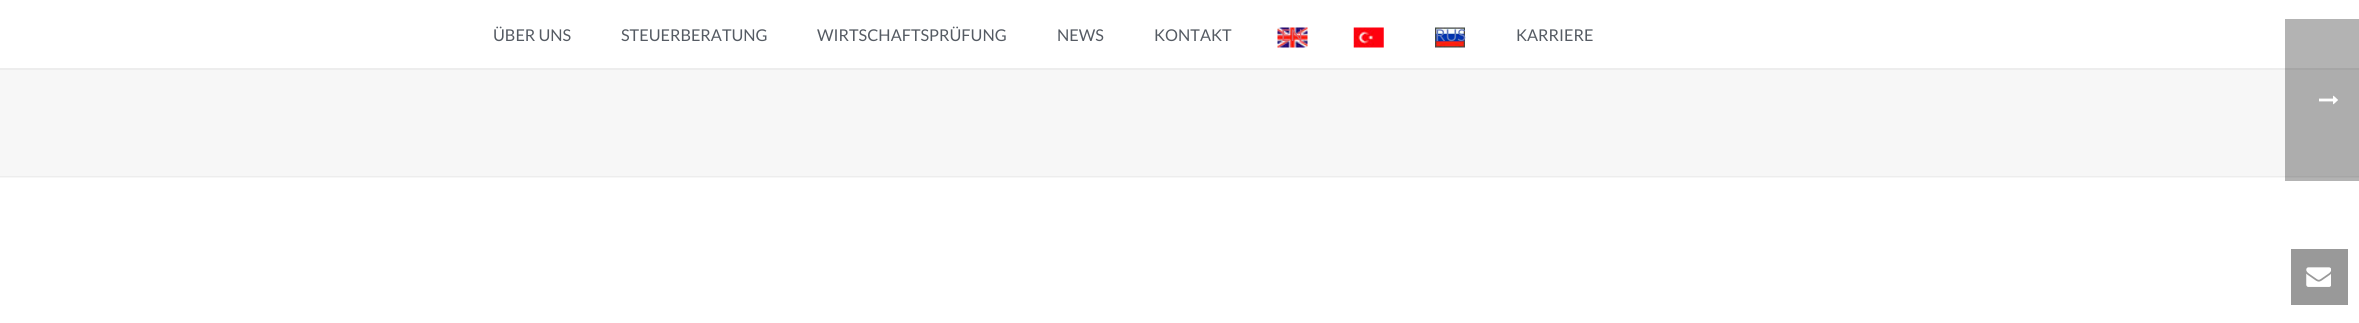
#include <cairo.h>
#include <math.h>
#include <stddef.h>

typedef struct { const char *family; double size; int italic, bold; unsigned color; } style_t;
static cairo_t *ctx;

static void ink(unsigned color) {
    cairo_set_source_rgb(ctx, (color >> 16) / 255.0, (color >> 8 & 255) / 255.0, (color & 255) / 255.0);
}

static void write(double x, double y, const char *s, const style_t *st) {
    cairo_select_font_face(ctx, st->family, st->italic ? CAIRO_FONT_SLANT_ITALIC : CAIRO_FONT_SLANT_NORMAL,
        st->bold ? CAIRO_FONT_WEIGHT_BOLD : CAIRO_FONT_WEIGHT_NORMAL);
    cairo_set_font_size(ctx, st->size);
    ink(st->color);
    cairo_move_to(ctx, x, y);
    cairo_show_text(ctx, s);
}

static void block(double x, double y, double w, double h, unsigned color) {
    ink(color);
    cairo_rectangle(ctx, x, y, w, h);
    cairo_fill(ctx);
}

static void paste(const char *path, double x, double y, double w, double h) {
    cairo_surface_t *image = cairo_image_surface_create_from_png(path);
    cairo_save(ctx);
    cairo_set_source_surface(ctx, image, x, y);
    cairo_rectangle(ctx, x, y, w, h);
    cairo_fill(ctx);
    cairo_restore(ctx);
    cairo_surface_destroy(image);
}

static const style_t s1 = {"Lato", 16.25, 0, 0, 0x555b63};
static const style_t s2 = {"Lato", 16.25, 0, 0, 0xdd616a};
static const style_t s3 = {"Lato", 16.25, 0, 0, 0x667cbf};

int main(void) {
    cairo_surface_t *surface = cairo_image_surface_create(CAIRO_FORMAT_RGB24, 2359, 323);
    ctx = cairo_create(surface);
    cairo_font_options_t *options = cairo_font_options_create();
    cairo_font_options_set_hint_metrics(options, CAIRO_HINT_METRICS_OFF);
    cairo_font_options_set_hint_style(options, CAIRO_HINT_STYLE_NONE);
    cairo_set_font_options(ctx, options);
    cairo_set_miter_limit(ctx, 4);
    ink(0xffffff);
    cairo_paint(ctx);
    block(2285, 178, 74, 3, 0xb3b3b3);
    block(0, 70, 2285, 108, 0xf7f7f7);
    block(2285, 70, 74, 108, 0xadadad);
    block(0, 176, 2285, 1, 0xededed);
    block(2285, 176, 74, 1, 0xa6a6a6);
    block(0, 68, 2285, 2, 0xededed);
    block(2285, 68, 74, 2, 0xa6a6a6);
    write(493, 41, "ÜBER UNS", &s1);
    write(621, 41, "STEUERBERATUNG", &s1);
    write(817, 41, "WIRTSCHAFTSPRÜFUNG", &s1);
    write(1057, 41, "NEWS", &s1);
    write(1154, 41, "KONTAKT", &s1);
    paste("pic1.png", 1277, 27, 31, 21);
    write(1281, 41, "EN", &s2);
    paste("pic2.png", 1353, 27, 31, 21);
    paste("pic3.png", 1435, 27, 30, 21);
    write(1435, 41, "RUS", &s3);
    write(1516, 41, "KARRIERE", &s1);
    block(2285, 19, 74, 49, 0xb3b3b3);
    paste("pic4.png", 2319, 95, 19, 10);
    block(2291, 249, 57, 56, 0x999999);
    paste("pic5.png", 2306, 267, 25, 20);
    cairo_surface_write_to_png(surface, "screenshot.png");
    cairo_font_options_destroy(options);
    cairo_destroy(ctx);
    cairo_surface_destroy(surface);
    return 0;
}
